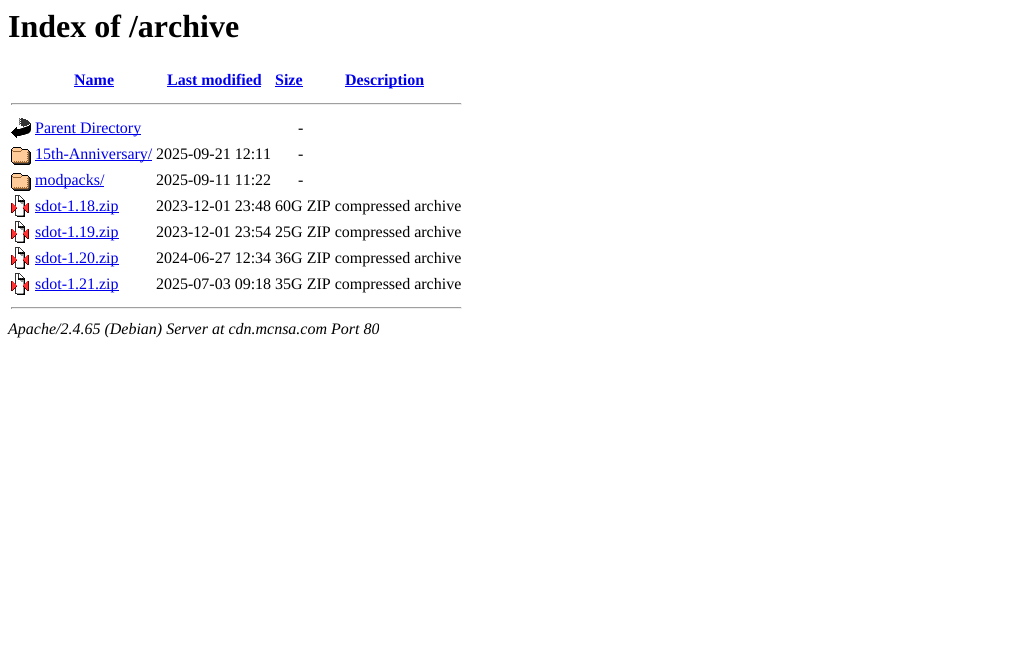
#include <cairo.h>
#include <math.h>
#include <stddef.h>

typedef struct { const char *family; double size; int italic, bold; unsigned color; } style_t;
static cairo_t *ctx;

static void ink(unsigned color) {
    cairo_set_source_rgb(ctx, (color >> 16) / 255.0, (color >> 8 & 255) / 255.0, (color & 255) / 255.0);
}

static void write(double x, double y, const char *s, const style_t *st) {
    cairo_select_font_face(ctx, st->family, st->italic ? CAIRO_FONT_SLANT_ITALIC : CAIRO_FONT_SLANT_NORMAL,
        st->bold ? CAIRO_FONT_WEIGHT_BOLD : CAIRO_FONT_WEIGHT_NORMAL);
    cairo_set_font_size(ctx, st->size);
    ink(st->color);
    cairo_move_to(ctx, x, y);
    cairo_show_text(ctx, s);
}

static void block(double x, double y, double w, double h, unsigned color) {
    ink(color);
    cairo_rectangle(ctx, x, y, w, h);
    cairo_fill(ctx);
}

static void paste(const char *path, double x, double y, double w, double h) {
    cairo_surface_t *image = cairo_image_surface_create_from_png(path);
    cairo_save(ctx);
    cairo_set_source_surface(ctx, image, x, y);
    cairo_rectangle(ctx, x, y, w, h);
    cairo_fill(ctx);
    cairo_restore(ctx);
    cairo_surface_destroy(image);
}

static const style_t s1 = {"Liberation Serif", 32, 0, 1, 0x000000};
static const style_t s2 = {"Liberation Serif", 16, 0, 1, 0x0000ee};
static const style_t s3 = {"Liberation Serif", 16, 0, 0, 0x0000ee};
static const style_t s4 = {"Liberation Serif", 16, 0, 0, 0x000000};
static const style_t s5 = {"Liberation Serif", 16, 1, 0, 0x000000};

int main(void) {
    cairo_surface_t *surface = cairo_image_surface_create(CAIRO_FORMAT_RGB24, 1031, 652);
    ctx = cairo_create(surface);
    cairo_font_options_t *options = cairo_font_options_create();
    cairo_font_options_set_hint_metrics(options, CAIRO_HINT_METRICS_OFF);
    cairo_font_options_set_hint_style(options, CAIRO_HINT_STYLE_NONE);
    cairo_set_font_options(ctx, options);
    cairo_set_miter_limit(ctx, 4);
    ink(0xffffff);
    cairo_paint(ctx);
    write(8, 37, "Index of /archive", &s1);
    write(74, 85, "Name", &s2);
    block(74, 86, 40, 1, 0x0000ee);
    write(167, 85, "Last modified", &s2);
    block(167, 86, 94, 1, 0x0000ee);
    write(275, 85, "Size", &s2);
    block(275, 86, 28, 1, 0x0000ee);
    block(345, 86, 79, 1, 0x0000ee);
    write(345, 85, "Description", &s2);
    block(11, 103, 451, 1, 0x9f9f9f);
    block(461, 103, 1, 2, 0xeeeeee);
    block(11, 104, 451, 1, 0xeeeeee);
    block(11, 103, 1, 2, 0x9f9f9f);
    paste("pic1.png", 11, 118, 20, 20);
    block(35, 134, 106, 1, 0x0000ee);
    write(35, 133, "Parent Directory", &s3);
    write(298, 133, "-", &s4);
    paste("pic2.png", 11, 147, 20, 18);
    block(35, 160, 117, 1, 0x0000ee);
    write(35, 159, "15th-Anniversary/", &s3);
    write(156, 159, "2025-09-21 12:11", &s4);
    write(298, 159, "-", &s4);
    paste("pic2.png", 11, 173, 20, 18);
    block(35, 186, 69, 1, 0x0000ee);
    write(35, 185, "modpacks/", &s3);
    write(156, 185, "2025-09-11 11:22", &s4);
    write(298, 185, "-", &s4);
    paste("pic3.png", 11, 195, 18, 22);
    block(35, 212, 84, 1, 0x0000ee);
    write(35, 211, "sdot-1.18.zip", &s3);
    write(156, 211, "2023-12-01 23:48 60G ZIP compressed archive", &s4);
    paste("pic3.png", 11, 221, 18, 22);
    block(35, 238, 84, 1, 0x0000ee);
    write(35, 237, "sdot-1.19.zip", &s3);
    write(156, 237, "2023-12-01 23:54 25G ZIP compressed archive", &s4);
    paste("pic3.png", 11, 247, 18, 22);
    block(35, 264, 84, 1, 0x0000ee);
    write(35, 263, "sdot-1.20.zip", &s3);
    write(156, 263, "2024-06-27 12:34 36G ZIP compressed archive", &s4);
    paste("pic3.png", 11, 273, 18, 22);
    block(35, 290, 84, 1, 0x0000ee);
    write(35, 289, "sdot-1.21.zip", &s3);
    write(156, 289, "2025-07-03 09:18 35G ZIP compressed archive", &s4);
    block(11, 307, 451, 1, 0x9f9f9f);
    block(461, 307, 1, 2, 0xeeeeee);
    block(11, 308, 451, 1, 0xeeeeee);
    block(11, 307, 1, 2, 0x9f9f9f);
    write(8, 334, "Apache/2.4.65 (Debian) Server at cdn.mcnsa.com Port 80", &s5);
    cairo_surface_write_to_png(surface, "screenshot.png");
    cairo_font_options_destroy(options);
    cairo_destroy(ctx);
    cairo_surface_destroy(surface);
    return 0;
}
